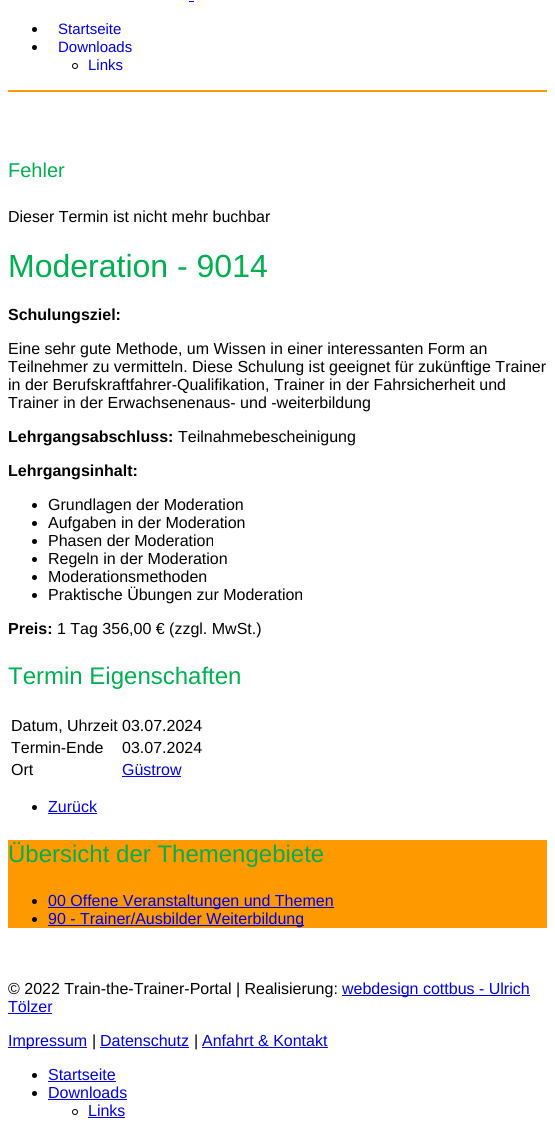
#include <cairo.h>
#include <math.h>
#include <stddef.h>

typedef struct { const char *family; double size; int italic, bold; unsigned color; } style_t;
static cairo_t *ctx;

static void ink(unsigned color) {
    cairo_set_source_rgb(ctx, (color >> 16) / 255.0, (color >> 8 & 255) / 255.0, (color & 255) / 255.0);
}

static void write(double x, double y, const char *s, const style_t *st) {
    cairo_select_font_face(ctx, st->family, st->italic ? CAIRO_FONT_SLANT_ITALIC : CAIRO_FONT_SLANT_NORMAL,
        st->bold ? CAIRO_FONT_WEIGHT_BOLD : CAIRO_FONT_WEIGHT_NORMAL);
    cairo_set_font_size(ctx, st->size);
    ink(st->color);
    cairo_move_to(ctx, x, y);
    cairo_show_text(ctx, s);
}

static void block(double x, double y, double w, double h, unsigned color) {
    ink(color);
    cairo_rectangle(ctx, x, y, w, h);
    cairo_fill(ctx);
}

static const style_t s1 = {"Liberation Sans", 15, 0, 0, 0x0000ee};
static const style_t s2 = {"Liberation Sans", 20, 0, 0, 0x00b050};
static const style_t s3 = {"Liberation Sans", 16, 0, 0, 0x000000};
static const style_t s4 = {"Liberation Sans", 32, 0, 0, 0x00b050};
static const style_t s5 = {"Liberation Sans", 16, 0, 1, 0x000000};
static const style_t s6 = {"Liberation Sans", 24, 0, 0, 0x00b050};
static const style_t s7 = {"Liberation Sans", 16, 0, 0, 0x0000ee};

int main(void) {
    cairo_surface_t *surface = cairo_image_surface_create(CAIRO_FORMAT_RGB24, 555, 1136);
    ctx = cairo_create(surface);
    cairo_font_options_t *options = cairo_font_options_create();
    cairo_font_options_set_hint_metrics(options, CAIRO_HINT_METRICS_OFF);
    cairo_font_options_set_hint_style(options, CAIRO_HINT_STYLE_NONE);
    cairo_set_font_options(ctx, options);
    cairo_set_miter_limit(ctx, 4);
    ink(0xffffff);
    cairo_paint(ctx);
    block(8, 90, 539, 2, 0xff9900);
    block(189, 1, 5, 1, 0x0000ee);
    ink(0x000000);
    cairo_arc(ctx, 34.5, 29.5, 2.5, 0, 2 * M_PI);
    cairo_fill(ctx);
    write(58, 34, "Startseite", &s1);
    ink(0x000000);
    cairo_new_path(ctx);
    cairo_arc(ctx, 34.5, 47.5, 2.5, 0, 2 * M_PI);
    cairo_fill(ctx);
    write(58, 52, "Downloads", &s1);
    cairo_new_path(ctx);
    cairo_arc(ctx, 75, 66, 2.5, 0, 2 * M_PI);
    ink(0x000000);
    cairo_set_line_width(ctx, 1);
    cairo_stroke(ctx);
    write(88, 70, "Links", &s1);
    write(8, 177, "Fehler", &s2);
    write(8, 222, "Dieser Termin ist nicht mehr buchbar", &s3);
    write(8, 277, "Moderation - 9014", &s4);
    write(8, 320, "Schulungsziel:", &s5);
    write(8, 354, "Eine sehr gute Methode, um Wissen in einer interessanten Form an", &s3);
    write(8, 372, "Teilnehmer zu vermitteln. Diese Schulung ist geeignet für zukünftige Trainer", &s3);
    write(8, 390, "in der Berufskraftfahrer-Qualifikation, Trainer in der Fahrsicherheit und", &s3);
    write(8, 408, "Trainer in der Erwachsenenaus- und -weiterbildung", &s3);
    write(8, 442, "Lehrgangsabschluss:", &s5);
    write(178, 442, "Teilnahmebescheinigung", &s3);
    write(8, 476, "Lehrgangsinhalt:", &s5);
    cairo_new_path(ctx);
    cairo_arc(ctx, 34.5, 505.5, 2.5, 0, 2 * M_PI);
    cairo_fill(ctx);
    write(48, 510, "Grundlagen der Moderation", &s3);
    cairo_new_path(ctx);
    cairo_arc(ctx, 34.5, 523.5, 2.5, 0, 2 * M_PI);
    cairo_fill(ctx);
    write(48, 528, "Aufgaben in der Moderation", &s3);
    cairo_new_path(ctx);
    cairo_arc(ctx, 34.5, 541.5, 2.5, 0, 2 * M_PI);
    cairo_fill(ctx);
    write(48, 546, "Phasen der Moderation", &s3);
    cairo_new_path(ctx);
    cairo_arc(ctx, 34.5, 559.5, 2.5, 0, 2 * M_PI);
    cairo_fill(ctx);
    write(48, 564, "Regeln in der Moderation", &s3);
    cairo_new_path(ctx);
    cairo_arc(ctx, 34.5, 577.5, 2.5, 0, 2 * M_PI);
    cairo_fill(ctx);
    write(48, 582, "Moderationsmethoden", &s3);
    cairo_new_path(ctx);
    cairo_arc(ctx, 34.5, 595.5, 2.5, 0, 2 * M_PI);
    cairo_fill(ctx);
    write(48, 600, "Praktische Übungen zur Moderation", &s3);
    write(8, 634, "Preis:", &s5);
    write(57, 634, "1 Tag 356,00 € (zzgl. MwSt.)", &s3);
    write(8, 684, "Termin Eigenschaften", &s6);
    write(11, 731, "Datum, Uhrzeit", &s3);
    write(122, 731, "03.07.2024", &s3);
    write(11, 753, "Termin-Ende", &s3);
    write(122, 753, "03.07.2024", &s3);
    write(11, 775, "Ort", &s3);
    write(122, 775, "Güstrow", &s7);
    block(122, 776, 59, 1, 0x0000ee);
    ink(0x000000);
    cairo_new_path(ctx);
    cairo_arc(ctx, 34.5, 807.5, 2.5, 0, 2 * M_PI);
    cairo_fill(ctx);
    write(48, 812, "Zurück", &s7);
    block(48, 813, 49, 1, 0x0000ee);
    block(8, 840, 539, 88, 0xff9900);
    write(8, 862, "Übersicht der Themengebiete", &s6);
    ink(0x000000);
    cairo_new_path(ctx);
    cairo_arc(ctx, 34.5, 901.5, 2.5, 0, 2 * M_PI);
    cairo_fill(ctx);
    block(48, 907, 286, 1, 0x0000ee);
    write(48, 906, "00 Offene Veranstaltungen und Themen", &s7);
    ink(0x000000);
    cairo_new_path(ctx);
    cairo_arc(ctx, 34.5, 919.5, 2.5, 0, 2 * M_PI);
    cairo_fill(ctx);
    block(48, 925, 256, 1, 0x0000ee);
    write(48, 924, "90 - Trainer/Ausbilder Weiterbildung", &s7);
    write(8, 994, "© 2022 Train-the-Trainer-Portal | Realisierung:", &s3);
    block(342, 995, 188, 1, 0x0000ee);
    write(342, 994, "webdesign cottbus - Ulrich", &s7);
    write(8, 1012, "Tölzer", &s7);
    block(8, 1013, 44, 1, 0x0000ee);
    block(8, 1047, 79, 1, 0x0000ee);
    write(8, 1046, "Impressum", &s7);
    write(92, 1046, "|", &s3);
    write(100, 1046, "Datenschutz", &s7);
    block(100, 1047, 89, 1, 0x0000ee);
    write(194, 1046, "|", &s3);
    write(202, 1046, "Anfahrt & Kontakt", &s7);
    block(202, 1047, 126, 1, 0x0000ee);
    ink(0x000000);
    cairo_new_path(ctx);
    cairo_arc(ctx, 34.5, 1075.5, 2.5, 0, 2 * M_PI);
    cairo_fill(ctx);
    write(48, 1080, "Startseite", &s7);
    block(48, 1081, 68, 1, 0x0000ee);
    ink(0x000000);
    cairo_new_path(ctx);
    cairo_arc(ctx, 34.5, 1093.5, 2.5, 0, 2 * M_PI);
    cairo_fill(ctx);
    write(48, 1098, "Downloads", &s7);
    block(48, 1099, 79, 1, 0x0000ee);
    cairo_new_path(ctx);
    cairo_arc(ctx, 75, 1112, 2.5, 0, 2 * M_PI);
    ink(0x000000);
    cairo_stroke(ctx);
    write(88, 1116, "Links", &s7);
    block(88, 1117, 37, 1, 0x0000ee);
    cairo_surface_write_to_png(surface, "screenshot.png");
    cairo_font_options_destroy(options);
    cairo_destroy(ctx);
    cairo_surface_destroy(surface);
    return 0;
}
